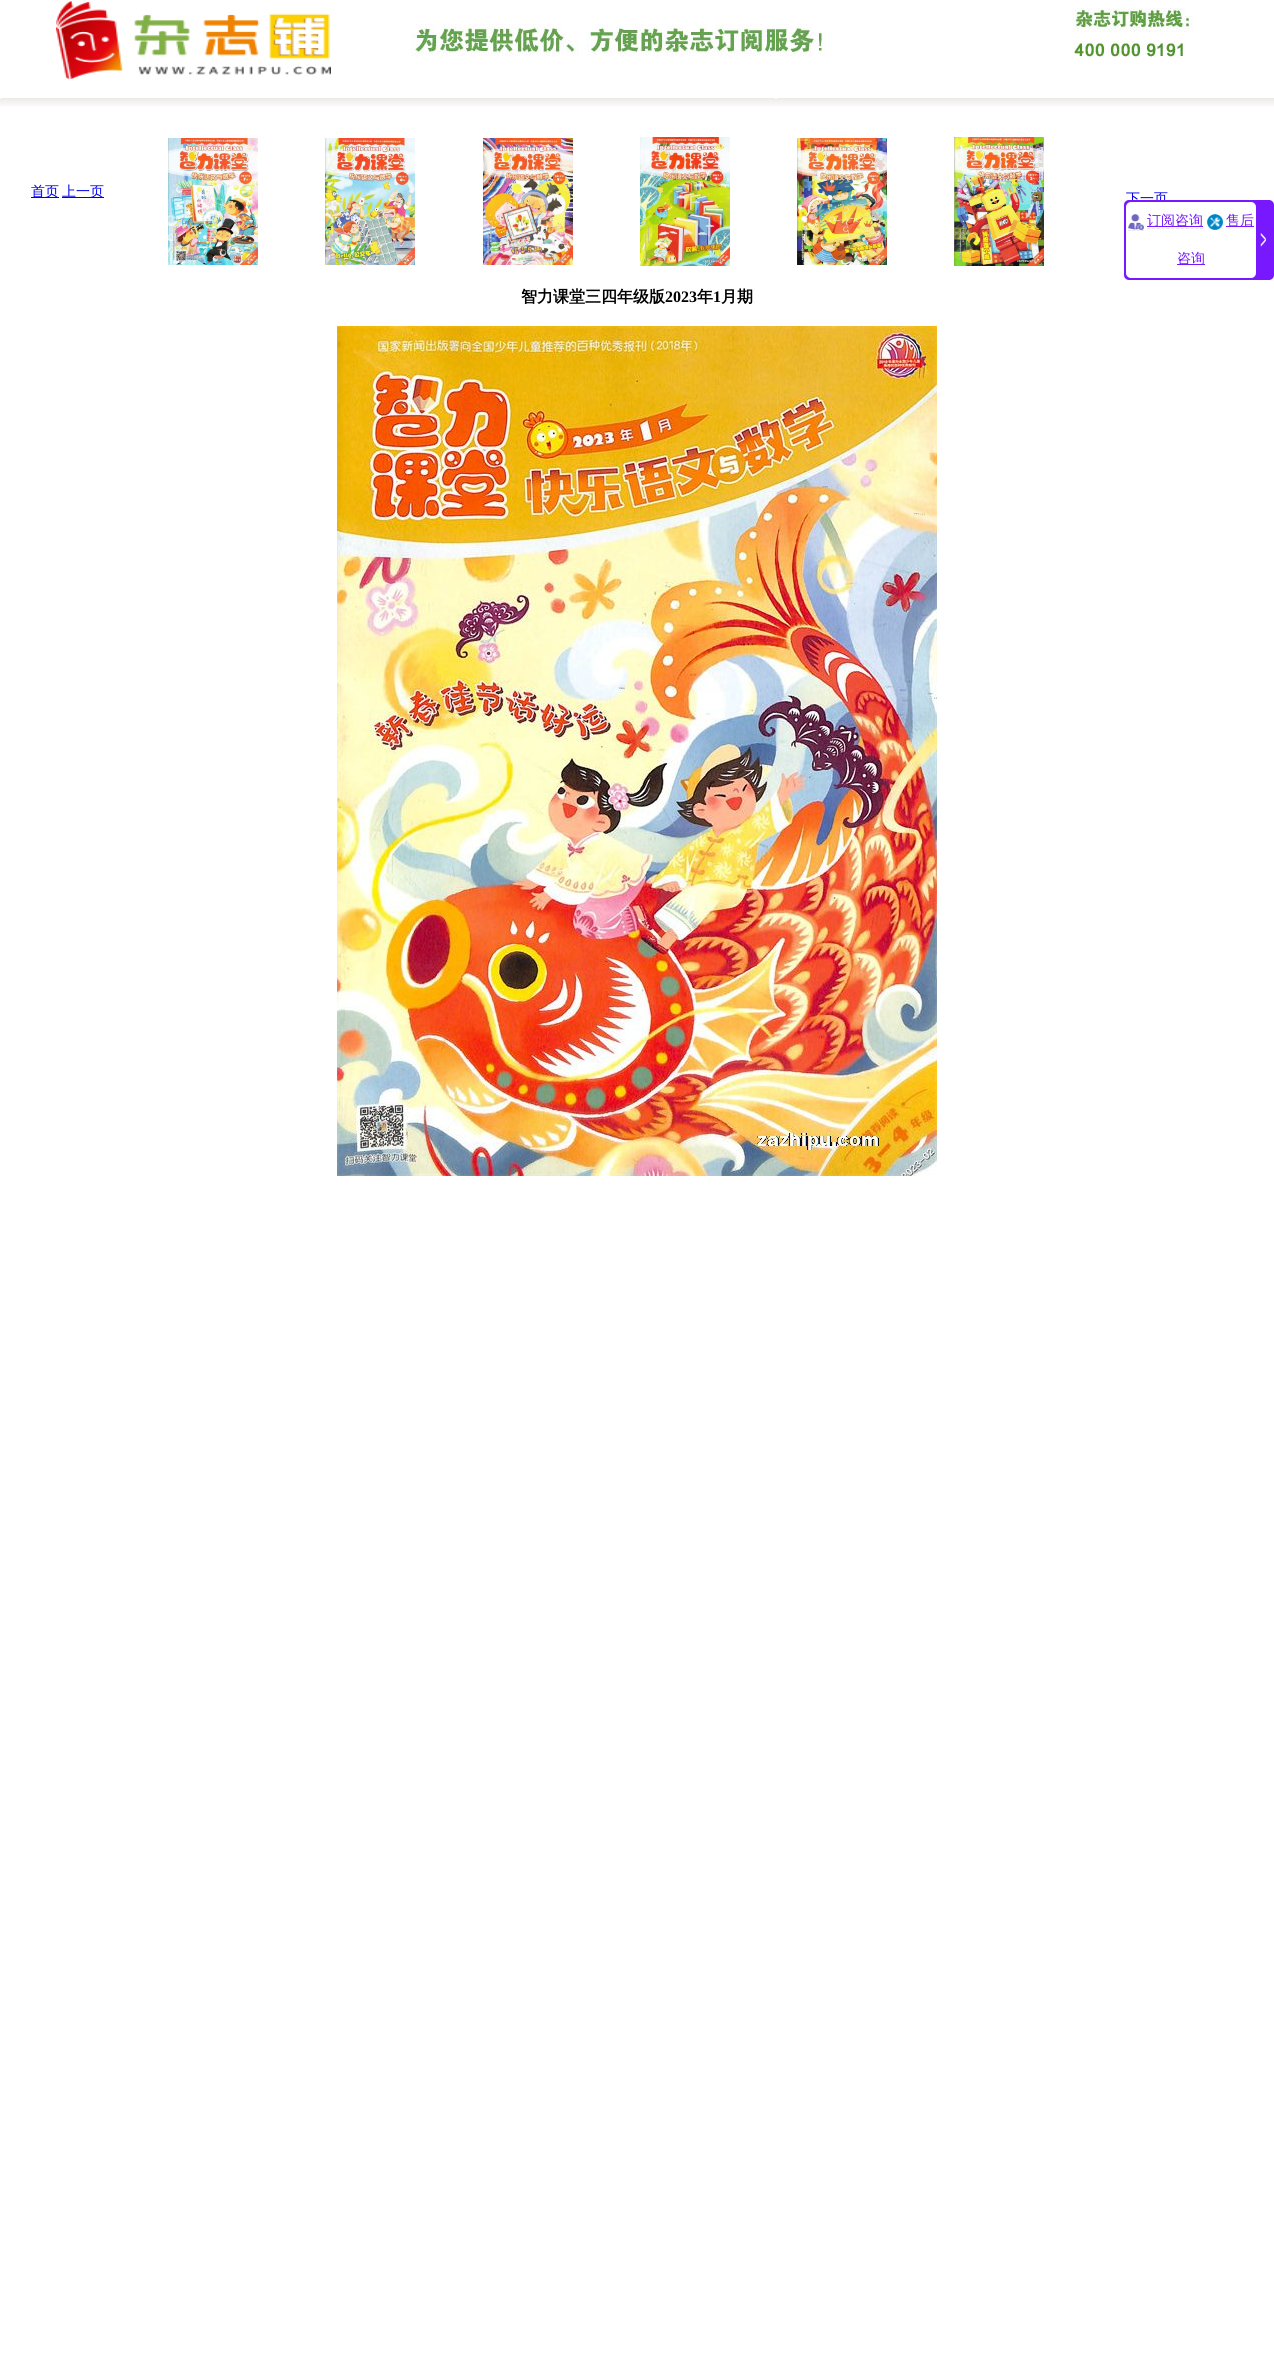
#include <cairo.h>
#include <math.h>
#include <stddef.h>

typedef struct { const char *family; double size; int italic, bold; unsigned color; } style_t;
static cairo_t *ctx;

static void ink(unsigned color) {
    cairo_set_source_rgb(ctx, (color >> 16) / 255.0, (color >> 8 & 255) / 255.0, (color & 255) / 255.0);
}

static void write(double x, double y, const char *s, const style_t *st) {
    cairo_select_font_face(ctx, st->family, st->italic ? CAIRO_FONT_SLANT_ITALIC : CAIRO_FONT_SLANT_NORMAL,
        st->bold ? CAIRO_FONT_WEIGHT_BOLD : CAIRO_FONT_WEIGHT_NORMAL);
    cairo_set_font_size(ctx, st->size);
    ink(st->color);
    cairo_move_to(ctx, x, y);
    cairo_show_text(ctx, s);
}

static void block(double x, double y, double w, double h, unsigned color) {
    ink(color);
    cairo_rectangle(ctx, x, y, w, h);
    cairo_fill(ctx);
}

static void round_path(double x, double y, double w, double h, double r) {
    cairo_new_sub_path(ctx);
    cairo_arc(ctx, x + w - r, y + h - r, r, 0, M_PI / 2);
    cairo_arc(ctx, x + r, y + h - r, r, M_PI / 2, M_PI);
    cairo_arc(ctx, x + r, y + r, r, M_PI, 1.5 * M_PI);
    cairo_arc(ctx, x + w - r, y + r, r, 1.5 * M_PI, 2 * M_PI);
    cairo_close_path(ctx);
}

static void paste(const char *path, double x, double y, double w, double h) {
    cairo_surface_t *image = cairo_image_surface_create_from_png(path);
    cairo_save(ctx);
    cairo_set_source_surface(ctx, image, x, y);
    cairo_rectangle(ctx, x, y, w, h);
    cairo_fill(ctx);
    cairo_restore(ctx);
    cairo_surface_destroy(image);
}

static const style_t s1 = {"WenQuanYi Zen Hei Medium", 14, 0, 0, 0x0000ee};
static const style_t s2 = {"WenQuanYi Zen Hei Medium", 14, 0, 0, 0x7818fe};
static const style_t s3 = {"WenQuanYi Zen Hei", 16, 0, 1, 0x000000};
static const style_t s4 = {"Liberation Serif", 16, 0, 1, 0x000000};

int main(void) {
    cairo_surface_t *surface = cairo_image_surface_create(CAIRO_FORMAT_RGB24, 1274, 2355);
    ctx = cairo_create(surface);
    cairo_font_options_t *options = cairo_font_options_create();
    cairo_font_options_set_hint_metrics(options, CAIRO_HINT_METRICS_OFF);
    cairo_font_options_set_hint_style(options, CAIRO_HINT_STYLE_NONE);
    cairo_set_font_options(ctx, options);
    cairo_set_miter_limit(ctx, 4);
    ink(0xffffff);
    cairo_paint(ctx);
    paste("pic1.png", 56, 1, 275, 78);
    paste("pic2.png", 411, 24, 416, 32);
    paste("pic3.png", 1073, 8, 120, 51);
    paste("pic4.png", 0, 98, 1274, 9);
    block(31, 197, 28, 1, 0x0000ee);
    write(31, 196, "首页", &s1);
    block(62, 197, 42, 1, 0x0000ee);
    write(62, 196, "上一页", &s1);
    paste("pic5.png", 168, 138, 90, 127);
    paste("pic6.png", 325, 138, 90, 127);
    paste("pic7.png", 483, 138, 90, 127);
    paste("pic8.png", 640, 137, 90, 129);
    paste("pic9.png", 797, 138, 90, 127);
    paste("pic10.png", 954, 137, 90, 129);
    write(1126, 203, "下一页", &s1);
    ink(0x7818fe);
    round_path(1124, 200, 150, 80, 5);
    cairo_fill(ctx);
    ink(0xffffff);
    round_path(1126, 202, 130, 76, 5);
    cairo_fill(ctx);
    cairo_new_path(ctx);
    cairo_move_to(ctx, 1128, 230.5);
    cairo_line_to(ctx, 1144, 230.5);
    ink(0xe8e8e8);
    cairo_set_line_width(ctx, 1);
    cairo_set_dash(ctx, (double[]){3, 1.33}, 2, 0);
    cairo_stroke(ctx);
    cairo_new_path(ctx);
    cairo_move_to(ctx, 1147, 228.5);
    cairo_line_to(ctx, 1203, 228.5);
    cairo_set_dash(ctx, (double[]){3, 1.82}, 2, 0);
    cairo_stroke(ctx);
    paste("pic11.png", 1128, 214, 16, 16);
    block(1147, 226, 56, 1, 0x7818fe);
    write(1147, 225, "订阅咨询", &s2);
    paste("pic12.png", 1207, 214, 16, 16);
    block(1226, 226, 28, 1, 0x7818fe);
    write(1226, 225, "售后", &s2);
    block(1177, 264, 28, 1, 0x7818fe);
    write(1177, 263, "咨询", &s2);
    paste("pic13.png", 1260, 233, 6, 14);
    write(521, 302, "智力课堂三四年级版", &s3);
    write(665, 302, "2023", &s4);
    write(697, 302, "年", &s3);
    write(713, 302, "1", &s4);
    write(721, 302, "月期", &s3);
    paste("pic14.png", 337, 326, 600, 850);
    cairo_surface_write_to_png(surface, "screenshot.png");
    cairo_font_options_destroy(options);
    cairo_destroy(ctx);
    cairo_surface_destroy(surface);
    return 0;
}
